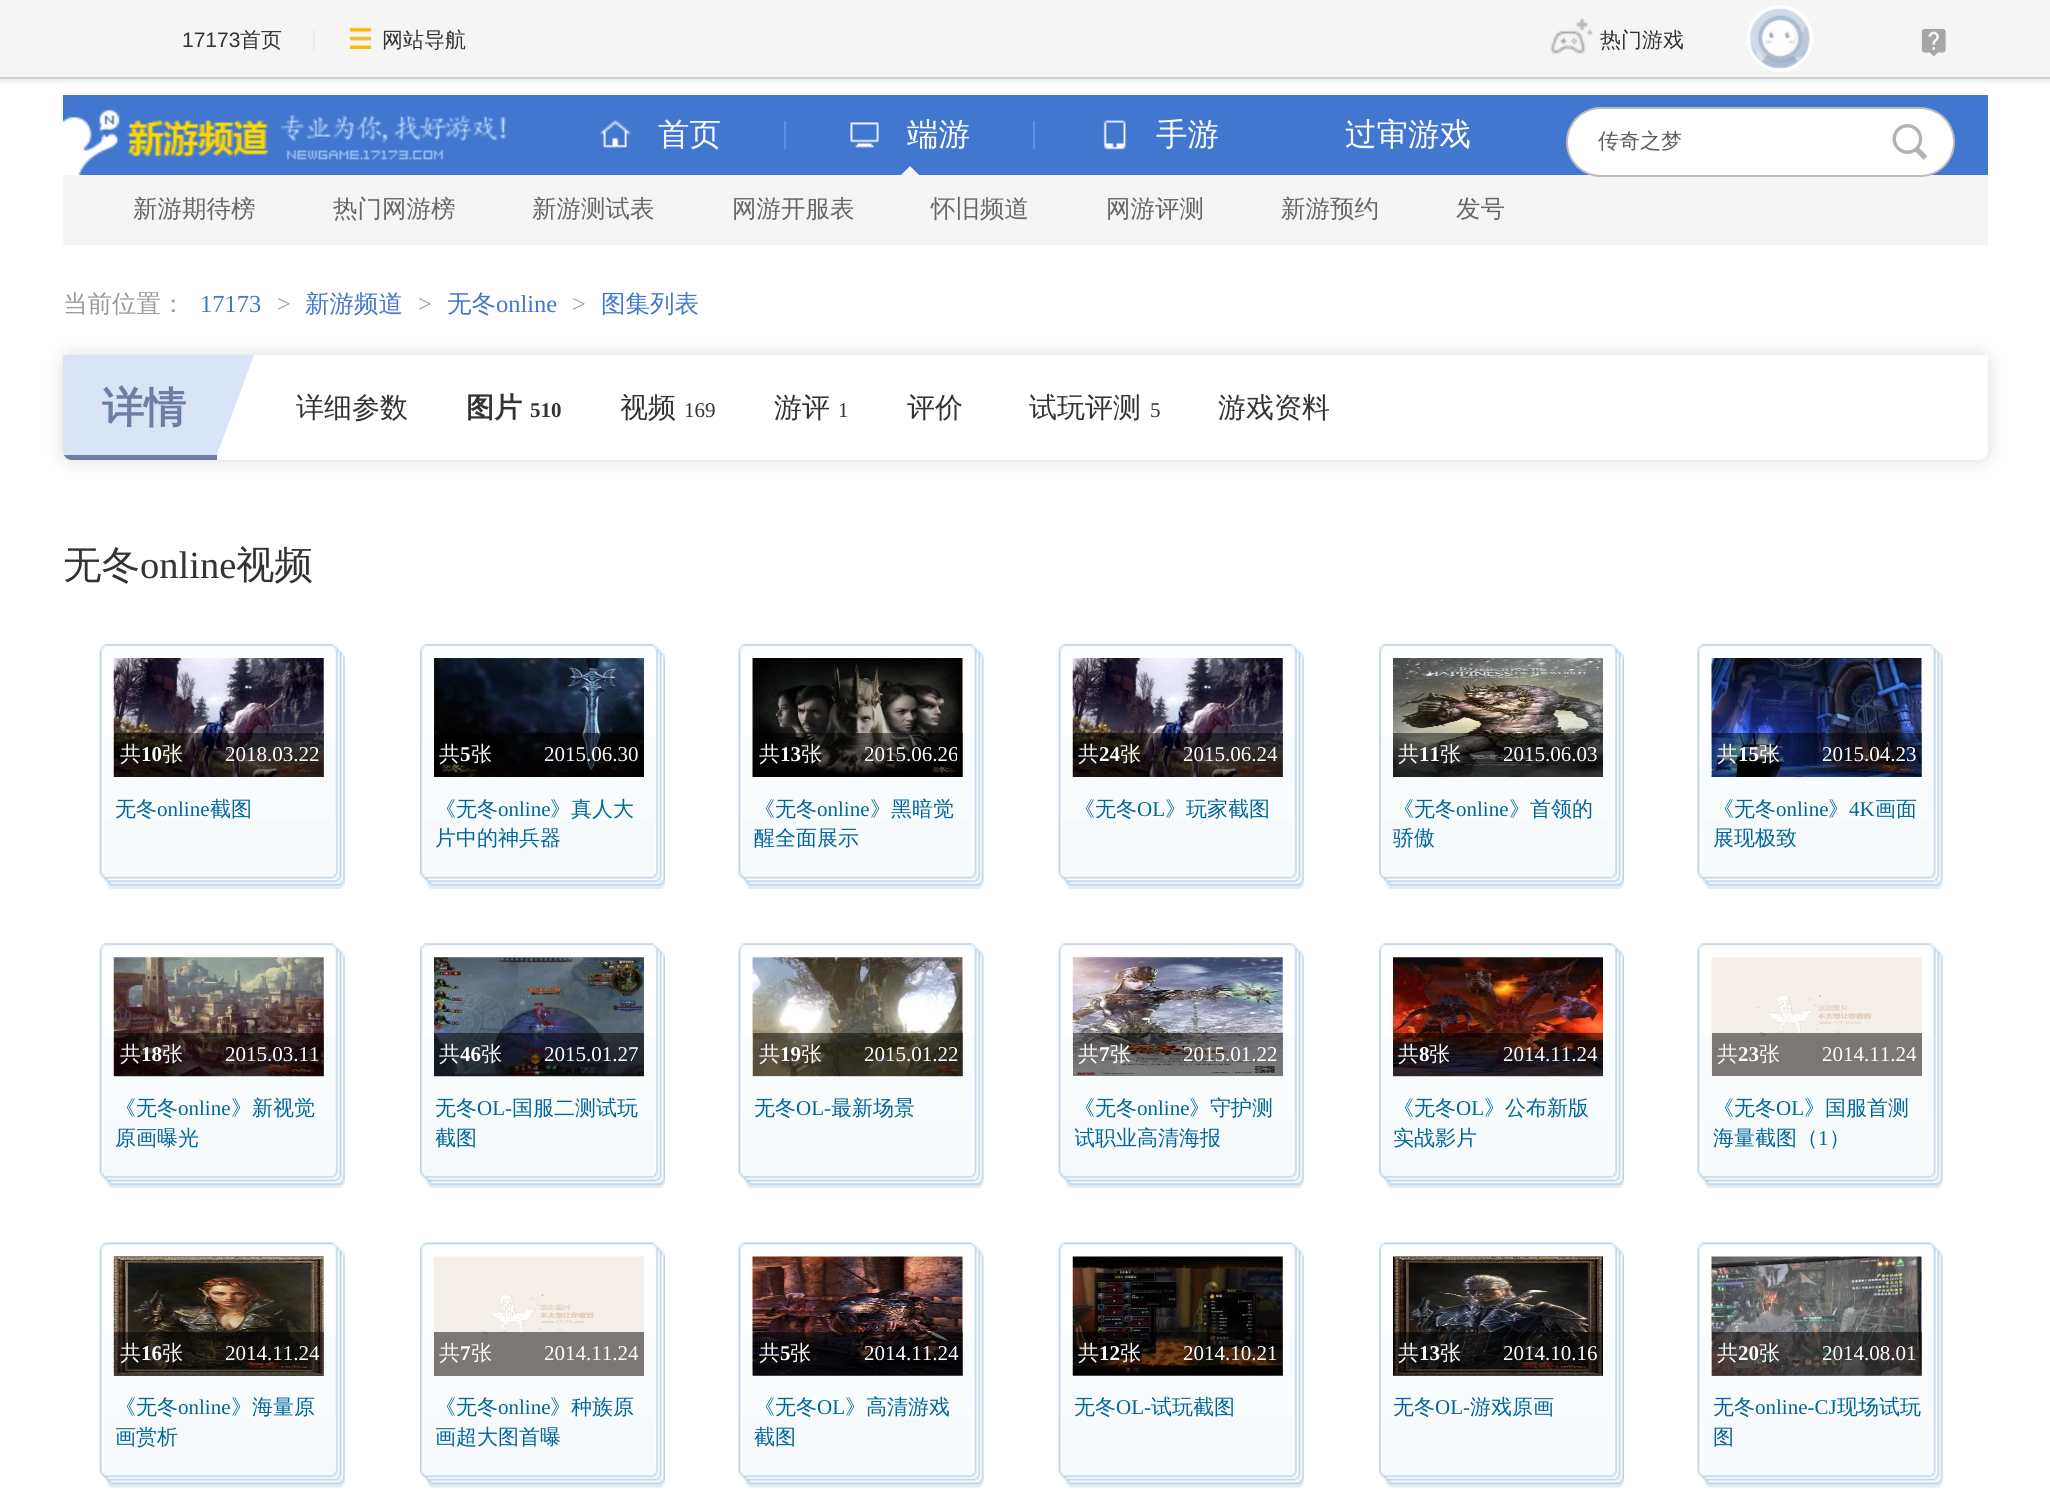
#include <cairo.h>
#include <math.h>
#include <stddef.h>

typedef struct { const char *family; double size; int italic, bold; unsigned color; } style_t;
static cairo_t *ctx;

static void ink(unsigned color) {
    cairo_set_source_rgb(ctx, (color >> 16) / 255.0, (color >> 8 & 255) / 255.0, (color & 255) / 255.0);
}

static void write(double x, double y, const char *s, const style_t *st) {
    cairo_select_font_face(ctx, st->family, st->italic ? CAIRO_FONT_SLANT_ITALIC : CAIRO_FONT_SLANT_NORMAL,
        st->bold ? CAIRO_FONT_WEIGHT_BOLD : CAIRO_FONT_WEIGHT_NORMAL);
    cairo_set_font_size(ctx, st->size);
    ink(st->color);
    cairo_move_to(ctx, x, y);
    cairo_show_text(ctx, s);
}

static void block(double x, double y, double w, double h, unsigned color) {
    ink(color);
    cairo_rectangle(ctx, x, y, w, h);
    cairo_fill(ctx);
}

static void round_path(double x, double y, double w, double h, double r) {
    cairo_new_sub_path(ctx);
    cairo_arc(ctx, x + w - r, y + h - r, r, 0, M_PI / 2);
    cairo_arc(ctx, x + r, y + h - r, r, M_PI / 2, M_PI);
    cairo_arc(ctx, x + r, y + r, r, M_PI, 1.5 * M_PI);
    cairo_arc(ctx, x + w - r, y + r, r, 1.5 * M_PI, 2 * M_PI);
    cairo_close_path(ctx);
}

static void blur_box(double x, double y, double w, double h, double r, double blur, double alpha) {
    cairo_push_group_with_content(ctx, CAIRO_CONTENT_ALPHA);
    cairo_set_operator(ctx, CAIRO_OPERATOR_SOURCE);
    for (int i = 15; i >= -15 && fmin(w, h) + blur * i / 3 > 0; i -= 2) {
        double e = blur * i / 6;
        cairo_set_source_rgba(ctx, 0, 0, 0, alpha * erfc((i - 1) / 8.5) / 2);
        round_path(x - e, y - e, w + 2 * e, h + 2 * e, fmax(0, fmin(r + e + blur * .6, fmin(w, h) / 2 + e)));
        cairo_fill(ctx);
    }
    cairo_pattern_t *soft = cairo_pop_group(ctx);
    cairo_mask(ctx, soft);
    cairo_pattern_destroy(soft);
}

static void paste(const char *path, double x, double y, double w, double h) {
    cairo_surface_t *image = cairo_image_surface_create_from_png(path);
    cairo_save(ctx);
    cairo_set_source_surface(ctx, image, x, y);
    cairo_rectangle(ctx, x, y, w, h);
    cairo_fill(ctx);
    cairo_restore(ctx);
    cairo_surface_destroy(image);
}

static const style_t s1 = {"Liberation Sans", 21, 0, 0, 0x333333};
static const style_t s2 = {"WenQuanYi Zen Hei Medium", 21, 0, 0, 0x333333};
static const style_t s3 = {"WenQuanYi Zen Hei Medium", 31.5, 0, 0, 0xffffff};
static const style_t s4 = {"WenQuanYi Zen Hei Medium", 24.5, 0, 0, 0x666666};
static const style_t s5 = {"WenQuanYi Zen Hei Medium", 21, 0, 0, 0x5d5d5d};
static const style_t s6 = {"WenQuanYi Zen Hei Medium", 24.5, 0, 0, 0x999999};
static const style_t s7 = {"Liberation Serif", 24.5, 0, 0, 0x4277d0};
static const style_t s8 = {"Liberation Serif", 24.5, 0, 0, 0x999999};
static const style_t s9 = {"WenQuanYi Zen Hei Medium", 24.5, 0, 0, 0x4277d0};
static const style_t s10 = {"WenQuanYi Zen Hei", 42, 0, 1, 0x6e7da4};
static const style_t s11 = {"WenQuanYi Zen Hei Medium", 28, 0, 0, 0x333333};
static const style_t s12 = {"WenQuanYi Zen Hei", 28, 0, 1, 0x333333};
static const style_t s13 = {"Liberation Serif", 21, 0, 1, 0x333333};
static const style_t s14 = {"Liberation Serif", 21, 0, 0, 0x333333};
static const style_t s15 = {"WenQuanYi Zen Hei Medium", 38.5, 0, 0, 0x333333};
static const style_t s16 = {"Liberation Serif", 38.5, 0, 0, 0x333333};
static const style_t s17 = {"WenQuanYi Zen Hei Medium", 21, 0, 0, 0xffffff};
static const style_t s18 = {"Liberation Serif", 21, 0, 1, 0xffffff};
static const style_t s19 = {"Liberation Serif", 21, 0, 0, 0xffffff};
static const style_t s20 = {"WenQuanYi Zen Hei Medium", 21, 0, 0, 0x006699};
static const style_t s21 = {"Liberation Serif", 21, 0, 0, 0x006699};

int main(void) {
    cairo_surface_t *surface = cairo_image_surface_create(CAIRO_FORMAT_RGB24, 2050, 1508);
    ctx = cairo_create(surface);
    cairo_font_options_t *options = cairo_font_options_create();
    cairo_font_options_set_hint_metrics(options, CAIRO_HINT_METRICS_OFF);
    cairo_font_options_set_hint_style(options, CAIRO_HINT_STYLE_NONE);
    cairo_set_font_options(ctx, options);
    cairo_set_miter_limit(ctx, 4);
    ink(0xffffff);
    cairo_paint(ctx);
    ink(0xe8e6e6);
    blur_box(0, 2, 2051, 79, 0, 2, 1);
    block(0, 0, 2050, 77, 0xf5f5f5);
    block(0, 77, 2050, 2, 0xd2d2d2);
    write(182, 47, "17173", &s1);
    write(240, 47, "首页", &s2);
    paste("pic1.png", 313, 30, 2, 21);
    paste("pic2.png", 350, 27, 22, 22);
    write(382, 47, "网站导航", &s2);
    paste("pic3.png", 1550, 18, 43, 37);
    write(1600, 47, "热门游戏", &s2);
    round_path(1749, 7, 62, 63, 31);
    ink(0xffffff);
    cairo_set_line_width(ctx, 4);
    cairo_stroke(ctx);
    paste("pic4.png", 1749, 8, 61, 61);
    paste("pic5.png", 1921, 28, 25, 29);
    block(63, 95, 1925, 80, 0x4277d0);
    paste("pic6.png", 600, 120, 31, 28);
    write(658, 145, "首页", &s3);
    block(784, 121, 2, 28, 0x598ee6);
    paste("pic7.png", 850, 122, 29, 26);
    write(907, 145, "端游", &s3);
    ink(0xf5f5f5);
    cairo_new_path(ctx);
    cairo_move_to(ctx, 919, 175);
    cairo_line_to(ctx, 901, 175);
    cairo_line_to(ctx, 910, 166);
    cairo_close_path(ctx);
    cairo_fill(ctx);
    block(1033, 121, 2, 28, 0x598ee6);
    paste("pic8.png", 1103, 120, 23, 30);
    write(1156, 145, "手游", &s3);
    write(1345, 145, "过审游戏", &s3);
    block(63, 175, 1925, 70, 0xf5f5f5);
    write(133, 217, "新游期待榜", &s4);
    write(333, 217, "热门网游榜", &s4);
    write(532, 217, "新游测试表", &s4);
    write(732, 217, "网游开服表", &s4);
    write(931, 217, "怀旧频道", &s4);
    write(1106, 217, "网游评测", &s4);
    write(1281, 217, "新游预约", &s4);
    write(1456, 217, "发号", &s4);
    paste("pic9.png", 63, 109, 206, 66);
    paste("pic10.png", 280, 115, 226, 45);
    ink(0xffffff);
    round_path(1567, 108, 387, 68, 34);
    cairo_fill_preserve(ctx);
    ink(0xbbbbbb);
    cairo_set_line_width(ctx, 2);
    cairo_stroke(ctx);
    write(1598, 148, "传奇之梦", &s5);
    paste("pic11.png", 1892, 124, 36, 36);
    write(63, 312, "当前位置：", &s6);
    write(200, 312, "17173", &s7);
    write(277, 312, ">", &s8);
    write(305, 312, "新游频道", &s9);
    write(418, 312, ">", &s8);
    write(447, 312, "无冬", &s9);
    write(496, 312, "online", &s7);
    write(572, 312, ">", &s8);
    write(601, 312, "图集列表", &s9);
    ink(0x414b5a);
    blur_box(63, 355, 1925, 105, 9, 9, 0.2);
    ink(0xffffff);
    cairo_new_path(ctx);
    cairo_move_to(ctx, 63, 355);
    cairo_line_to(ctx, 1988, 355);
    cairo_line_to(ctx, 1988, 451);
    cairo_curve_to(ctx, 1988, 456, 1984, 460, 1979, 460);
    cairo_line_to(ctx, 72, 460);
    cairo_curve_to(ctx, 67, 460, 63, 456, 63, 451);
    cairo_close_path(ctx);
    cairo_fill(ctx);
    ink(0xd9e4f6);
    cairo_new_path(ctx);
    cairo_move_to(ctx, 63, 355);
    cairo_line_to(ctx, 63, 451);
    cairo_curve_to(ctx, 63, 456, 67, 460, 72, 460);
    cairo_line_to(ctx, 215, 460);
    cairo_line_to(ctx, 254, 355);
    cairo_close_path(ctx);
    cairo_fill(ctx);
    write(102, 422, "详情", &s10);
    cairo_save(ctx);
    cairo_new_path(ctx);
    cairo_move_to(ctx, 63, 355);
    cairo_line_to(ctx, 1719, 355);
    cairo_line_to(ctx, 1719, 451);
    cairo_curve_to(ctx, 1719, 456, 1715, 460, 1710, 460);
    cairo_line_to(ctx, 72, 460);
    cairo_curve_to(ctx, 67, 460, 63, 456, 63, 451);
    cairo_close_path(ctx);
    cairo_clip(ctx);
    block(63, 455, 154, 5, 0x6e7da4);
    cairo_restore(ctx);
    write(296, 417, "详细参数", &s11);
    write(466, 417, "图片", &s12);
    write(530, 417, "510", &s13);
    write(620, 417, "视频", &s11);
    write(684, 417, "169", &s14);
    write(774, 417, "游评", &s11);
    write(838, 417, "1", &s14);
    write(907, 417, "评价", &s11);
    write(1029, 417, "试玩评测", &s11);
    write(1150, 417, "5", &s14);
    write(1218, 417, "游戏资料", &s11);
    write(63, 578, "无冬", &s15);
    write(140, 578, "online", &s16);
    write(236, 578, "视频", &s15);
    paste("pic12.png", 99, 644, 246, 245);
    paste("pic13.png", 113, 658, 211, 119);
    cairo_set_source_rgba(ctx, 0, 0, 0, 0.5);
    cairo_rectangle(ctx, 114, 733, 210, 44);
    cairo_fill(ctx);
    write(120, 761, "共", &s17);
    write(141, 761, "10", &s18);
    write(162, 761, "张", &s17);
    write(225, 761, "2018.03.22", &s19);
    write(115, 816, "无冬", &s20);
    write(157, 816, "online", &s21);
    write(210, 816, "截图", &s20);
    paste("pic14.png", 420, 644, 245, 245);
    paste("pic15.png", 434, 658, 210, 119);
    cairo_set_source_rgba(ctx, 0, 0, 0, 0.5);
    cairo_rectangle(ctx, 434, 733, 210, 44);
    cairo_fill(ctx);
    write(439, 761, "共", &s17);
    write(460, 761, "5", &s18);
    write(471, 761, "张", &s17);
    write(544, 761, "2015.06.30", &s19);
    write(435, 816, "《无冬", &s20);
    write(498, 816, "online", &s21);
    write(550, 816, "》真人大", &s20);
    write(435, 845, "片中的神兵器", &s20);
    paste("pic16.png", 738, 644, 246, 245);
    paste("pic17.png", 752, 658, 211, 119);
    cairo_set_source_rgba(ctx, 0, 0, 0, 0.5);
    cairo_rectangle(ctx, 753, 733, 210, 44);
    cairo_fill(ctx);
    write(759, 761, "共", &s17);
    write(780, 761, "13", &s18);
    write(801, 761, "张", &s17);
    cairo_save(ctx);
    cairo_rectangle(ctx, 821, 733, 136, 44);
    cairo_clip(ctx);
    write(864, 761, "2015.06.26", &s19);
    cairo_restore(ctx);
    write(754, 816, "《无冬", &s20);
    write(817, 816, "online", &s21);
    write(870, 816, "》黑暗觉", &s20);
    write(754, 845, "醒全面展示", &s20);
    paste("pic18.png", 1058, 644, 246, 245);
    paste("pic19.png", 1072, 658, 211, 119);
    cairo_set_source_rgba(ctx, 0, 0, 0, 0.5);
    cairo_rectangle(ctx, 1073, 733, 210, 44);
    cairo_fill(ctx);
    write(1078, 761, "共", &s17);
    write(1099, 761, "24", &s18);
    write(1120, 761, "张", &s17);
    write(1183, 761, "2015.06.24", &s19);
    write(1074, 816, "《无冬", &s20);
    write(1137, 816, "OL", &s21);
    write(1165, 816, "》玩家截图", &s20);
    paste("pic14.png", 1379, 644, 245, 245);
    paste("pic20.png", 1393, 658, 210, 119);
    cairo_set_source_rgba(ctx, 0, 0, 0, 0.5);
    cairo_rectangle(ctx, 1393, 733, 210, 44);
    cairo_fill(ctx);
    write(1398, 761, "共", &s17);
    write(1419, 761, "11", &s18);
    write(1440, 761, "张", &s17);
    write(1503, 761, "2015.06.03", &s19);
    write(1393, 816, "《无冬", &s20);
    write(1456, 816, "online", &s21);
    write(1509, 816, "》首领的", &s20);
    write(1393, 845, "骄傲", &s20);
    paste("pic16.png", 1697, 644, 246, 245);
    paste("pic21.png", 1711, 658, 211, 119);
    cairo_set_source_rgba(ctx, 0, 0, 0, 0.5);
    cairo_rectangle(ctx, 1712, 733, 210, 44);
    cairo_fill(ctx);
    write(1717, 761, "共", &s17);
    write(1738, 761, "15", &s18);
    write(1759, 761, "张", &s17);
    write(1822, 761, "2015.04.23", &s19);
    write(1713, 816, "《无冬", &s20);
    write(1776, 816, "online", &s21);
    write(1828, 816, "》", &s20);
    write(1849, 816, "4K", &s21);
    write(1875, 816, "画面", &s20);
    write(1713, 845, "展现极致", &s20);
    paste("pic22.png", 99, 943, 246, 246);
    paste("pic23.png", 113, 957, 211, 120);
    cairo_set_source_rgba(ctx, 0, 0, 0, 0.5);
    cairo_rectangle(ctx, 114, 1033, 210, 43);
    cairo_fill(ctx);
    write(120, 1061, "共", &s17);
    write(141, 1061, "18", &s18);
    write(162, 1061, "张", &s17);
    write(225, 1061, "2015.03.11", &s19);
    write(115, 1115, "《无冬", &s20);
    write(178, 1115, "online", &s21);
    write(231, 1115, "》新视觉", &s20);
    write(115, 1145, "原画曝光", &s20);
    paste("pic24.png", 420, 943, 245, 246);
    paste("pic25.png", 434, 957, 210, 120);
    cairo_set_source_rgba(ctx, 0, 0, 0, 0.5);
    cairo_rectangle(ctx, 434, 1033, 210, 43);
    cairo_fill(ctx);
    write(439, 1061, "共", &s17);
    write(460, 1061, "46", &s18);
    write(481, 1061, "张", &s17);
    write(544, 1061, "2015.01.27", &s19);
    write(435, 1115, "无冬", &s20);
    write(477, 1115, "OL-", &s21);
    write(512, 1115, "国服二测试玩", &s20);
    write(435, 1145, "截图", &s20);
    paste("pic26.png", 738, 943, 246, 246);
    paste("pic27.png", 752, 957, 211, 120);
    cairo_set_source_rgba(ctx, 0, 0, 0, 0.5);
    cairo_rectangle(ctx, 753, 1033, 210, 43);
    cairo_fill(ctx);
    write(759, 1061, "共", &s17);
    write(780, 1061, "19", &s18);
    write(801, 1061, "张", &s17);
    write(864, 1061, "2015.01.22", &s19);
    write(754, 1115, "无冬", &s20);
    write(796, 1115, "OL-", &s21);
    write(831, 1115, "最新场景", &s20);
    paste("pic28.png", 1058, 943, 246, 246);
    paste("pic29.png", 1072, 957, 211, 120);
    cairo_set_source_rgba(ctx, 0, 0, 0, 0.5);
    cairo_rectangle(ctx, 1073, 1033, 210, 43);
    cairo_fill(ctx);
    write(1078, 1061, "共", &s17);
    write(1099, 1061, "7", &s18);
    write(1110, 1061, "张", &s17);
    write(1183, 1061, "2015.01.22", &s19);
    write(1074, 1115, "《无冬", &s20);
    write(1137, 1115, "online", &s21);
    write(1189, 1115, "》守护测", &s20);
    cairo_save(ctx);
    cairo_rectangle(ctx, 1075, 1094, 206, 70);
    cairo_clip(ctx);
    write(1074, 1145, "试职业高清海报", &s20);
    cairo_restore(ctx);
    paste("pic24.png", 1379, 943, 245, 246);
    paste("pic30.png", 1393, 957, 210, 120);
    cairo_set_source_rgba(ctx, 0, 0, 0, 0.5);
    cairo_rectangle(ctx, 1393, 1033, 210, 43);
    cairo_fill(ctx);
    write(1398, 1061, "共", &s17);
    write(1419, 1061, "8", &s18);
    write(1429, 1061, "张", &s17);
    write(1503, 1061, "2014.11.24", &s19);
    write(1393, 1115, "《无冬", &s20);
    write(1456, 1115, "OL", &s21);
    write(1484, 1115, "》公布新版", &s20);
    write(1393, 1145, "实战影片", &s20);
    paste("pic26.png", 1697, 943, 246, 246);
    paste("pic31.png", 1711, 957, 211, 120);
    cairo_set_source_rgba(ctx, 0, 0, 0, 0.5);
    cairo_rectangle(ctx, 1712, 1033, 210, 43);
    cairo_fill(ctx);
    write(1717, 1061, "共", &s17);
    write(1738, 1061, "23", &s18);
    write(1759, 1061, "张", &s17);
    write(1822, 1061, "2014.11.24", &s19);
    write(1713, 1115, "《无冬", &s20);
    write(1776, 1115, "OL", &s21);
    write(1804, 1115, "》国服首测", &s20);
    write(1713, 1145, "海量截图（", &s20);
    write(1818, 1145, "1", &s21);
    write(1829, 1145, "）", &s20);
    paste("pic32.png", 99, 1242, 246, 246);
    paste("pic33.png", 113, 1256, 211, 120);
    cairo_set_source_rgba(ctx, 0, 0, 0, 0.5);
    cairo_rectangle(ctx, 114, 1332, 210, 44);
    cairo_fill(ctx);
    write(120, 1360, "共", &s17);
    write(141, 1360, "16", &s18);
    write(162, 1360, "张", &s17);
    write(225, 1360, "2014.11.24", &s19);
    write(115, 1414, "《无冬", &s20);
    write(178, 1414, "online", &s21);
    write(231, 1414, "》海量原", &s20);
    write(115, 1444, "画赏析", &s20);
    paste("pic34.png", 420, 1242, 245, 246);
    paste("pic35.png", 434, 1256, 210, 120);
    cairo_set_source_rgba(ctx, 0, 0, 0, 0.5);
    cairo_rectangle(ctx, 434, 1332, 210, 44);
    cairo_fill(ctx);
    write(439, 1360, "共", &s17);
    write(460, 1360, "7", &s18);
    write(471, 1360, "张", &s17);
    write(544, 1360, "2014.11.24", &s19);
    write(435, 1414, "《无冬", &s20);
    write(498, 1414, "online", &s21);
    write(550, 1414, "》种族原", &s20);
    write(435, 1444, "画超大图首曝", &s20);
    paste("pic36.png", 738, 1242, 246, 246);
    paste("pic37.png", 752, 1256, 211, 120);
    cairo_set_source_rgba(ctx, 0, 0, 0, 0.5);
    cairo_rectangle(ctx, 753, 1332, 210, 44);
    cairo_fill(ctx);
    write(759, 1360, "共", &s17);
    write(780, 1360, "5", &s18);
    write(790, 1360, "张", &s17);
    write(864, 1360, "2014.11.24", &s19);
    write(754, 1414, "《无冬", &s20);
    write(817, 1414, "OL", &s21);
    write(845, 1414, "》高清游戏", &s20);
    write(754, 1444, "截图", &s20);
    paste("pic38.png", 1058, 1242, 246, 246);
    paste("pic39.png", 1072, 1256, 211, 120);
    cairo_set_source_rgba(ctx, 0, 0, 0, 0.5);
    cairo_rectangle(ctx, 1073, 1332, 210, 44);
    cairo_fill(ctx);
    write(1078, 1360, "共", &s17);
    write(1099, 1360, "12", &s18);
    write(1120, 1360, "张", &s17);
    write(1183, 1360, "2014.10.21", &s19);
    write(1074, 1414, "无冬", &s20);
    write(1116, 1414, "OL-", &s21);
    write(1151, 1414, "试玩截图", &s20);
    paste("pic34.png", 1379, 1242, 245, 246);
    paste("pic40.png", 1393, 1256, 210, 120);
    cairo_set_source_rgba(ctx, 0, 0, 0, 0.5);
    cairo_rectangle(ctx, 1393, 1332, 210, 44);
    cairo_fill(ctx);
    write(1398, 1360, "共", &s17);
    write(1419, 1360, "13", &s18);
    write(1440, 1360, "张", &s17);
    write(1503, 1360, "2014.10.16", &s19);
    write(1393, 1414, "无冬", &s20);
    write(1435, 1414, "OL-", &s21);
    write(1470, 1414, "游戏原画", &s20);
    paste("pic36.png", 1697, 1242, 246, 246);
    paste("pic41.png", 1711, 1256, 211, 120);
    cairo_set_source_rgba(ctx, 0, 0, 0, 0.5);
    cairo_rectangle(ctx, 1712, 1332, 210, 44);
    cairo_fill(ctx);
    write(1717, 1360, "共", &s17);
    write(1738, 1360, "20", &s18);
    write(1759, 1360, "张", &s17);
    write(1822, 1360, "2014.08.01", &s19);
    write(1713, 1414, "无冬", &s20);
    write(1755, 1414, "online-CJ", &s21);
    write(1837, 1414, "现场试玩", &s20);
    write(1713, 1444, "图", &s20);
    cairo_surface_write_to_png(surface, "screenshot.png");
    cairo_font_options_destroy(options);
    cairo_destroy(ctx);
    cairo_surface_destroy(surface);
    return 0;
}
